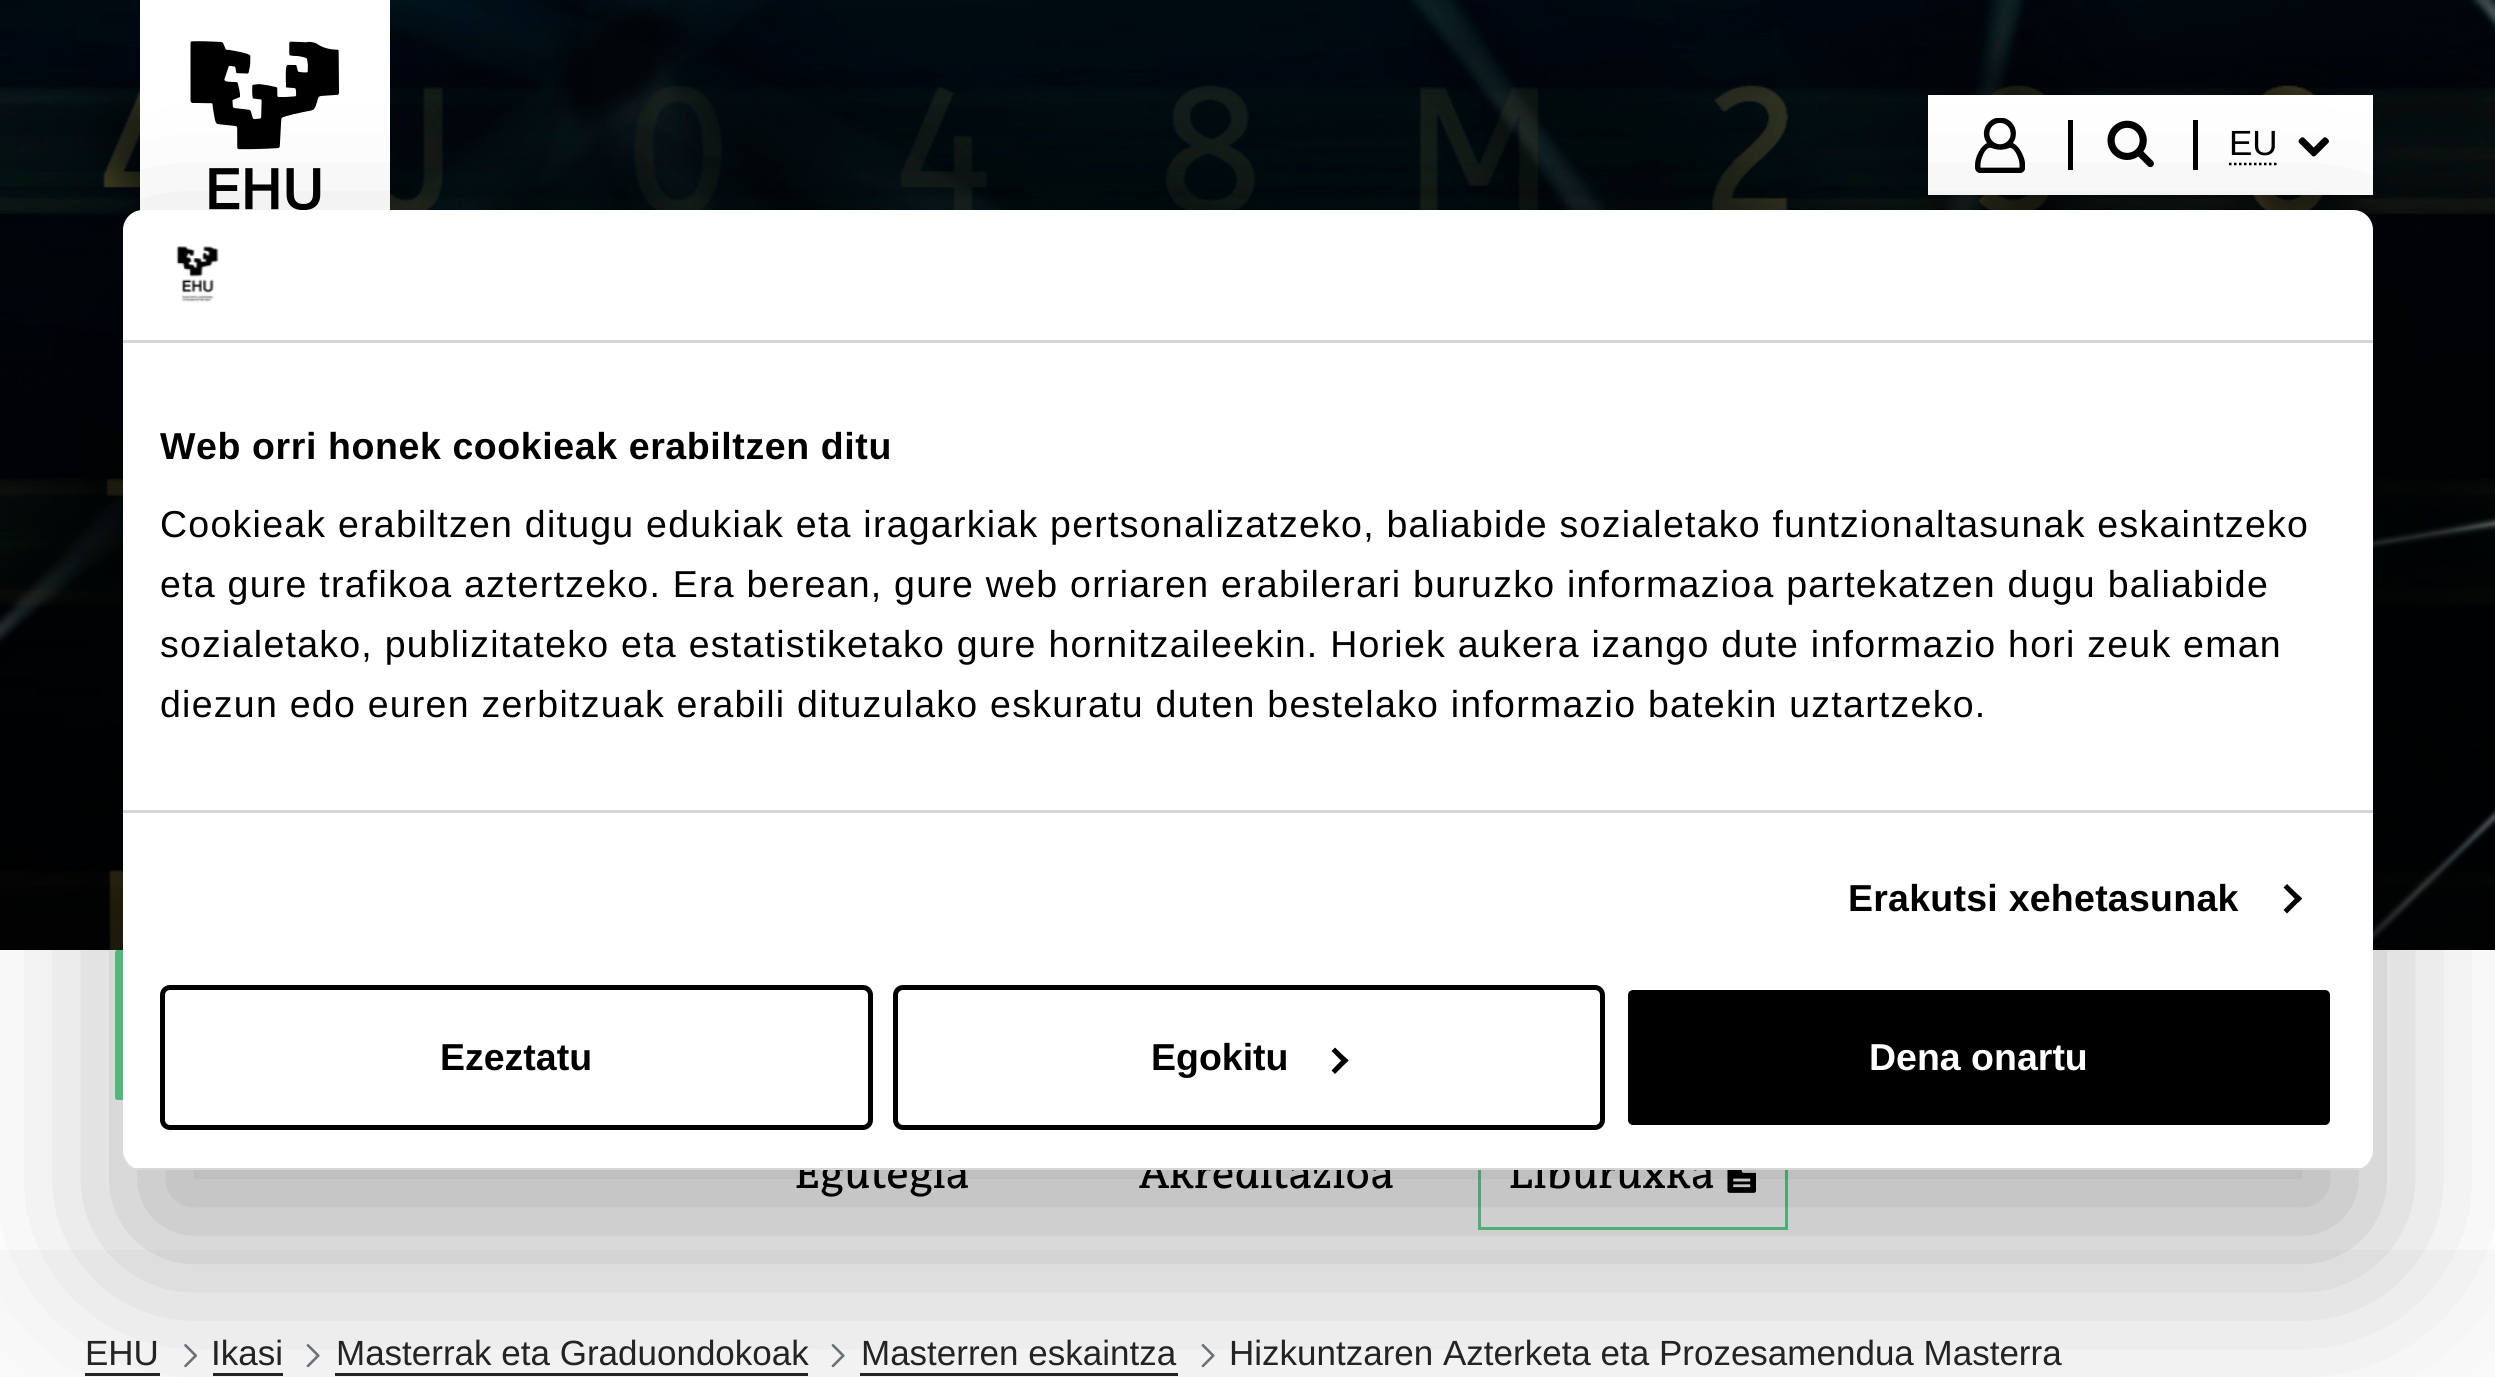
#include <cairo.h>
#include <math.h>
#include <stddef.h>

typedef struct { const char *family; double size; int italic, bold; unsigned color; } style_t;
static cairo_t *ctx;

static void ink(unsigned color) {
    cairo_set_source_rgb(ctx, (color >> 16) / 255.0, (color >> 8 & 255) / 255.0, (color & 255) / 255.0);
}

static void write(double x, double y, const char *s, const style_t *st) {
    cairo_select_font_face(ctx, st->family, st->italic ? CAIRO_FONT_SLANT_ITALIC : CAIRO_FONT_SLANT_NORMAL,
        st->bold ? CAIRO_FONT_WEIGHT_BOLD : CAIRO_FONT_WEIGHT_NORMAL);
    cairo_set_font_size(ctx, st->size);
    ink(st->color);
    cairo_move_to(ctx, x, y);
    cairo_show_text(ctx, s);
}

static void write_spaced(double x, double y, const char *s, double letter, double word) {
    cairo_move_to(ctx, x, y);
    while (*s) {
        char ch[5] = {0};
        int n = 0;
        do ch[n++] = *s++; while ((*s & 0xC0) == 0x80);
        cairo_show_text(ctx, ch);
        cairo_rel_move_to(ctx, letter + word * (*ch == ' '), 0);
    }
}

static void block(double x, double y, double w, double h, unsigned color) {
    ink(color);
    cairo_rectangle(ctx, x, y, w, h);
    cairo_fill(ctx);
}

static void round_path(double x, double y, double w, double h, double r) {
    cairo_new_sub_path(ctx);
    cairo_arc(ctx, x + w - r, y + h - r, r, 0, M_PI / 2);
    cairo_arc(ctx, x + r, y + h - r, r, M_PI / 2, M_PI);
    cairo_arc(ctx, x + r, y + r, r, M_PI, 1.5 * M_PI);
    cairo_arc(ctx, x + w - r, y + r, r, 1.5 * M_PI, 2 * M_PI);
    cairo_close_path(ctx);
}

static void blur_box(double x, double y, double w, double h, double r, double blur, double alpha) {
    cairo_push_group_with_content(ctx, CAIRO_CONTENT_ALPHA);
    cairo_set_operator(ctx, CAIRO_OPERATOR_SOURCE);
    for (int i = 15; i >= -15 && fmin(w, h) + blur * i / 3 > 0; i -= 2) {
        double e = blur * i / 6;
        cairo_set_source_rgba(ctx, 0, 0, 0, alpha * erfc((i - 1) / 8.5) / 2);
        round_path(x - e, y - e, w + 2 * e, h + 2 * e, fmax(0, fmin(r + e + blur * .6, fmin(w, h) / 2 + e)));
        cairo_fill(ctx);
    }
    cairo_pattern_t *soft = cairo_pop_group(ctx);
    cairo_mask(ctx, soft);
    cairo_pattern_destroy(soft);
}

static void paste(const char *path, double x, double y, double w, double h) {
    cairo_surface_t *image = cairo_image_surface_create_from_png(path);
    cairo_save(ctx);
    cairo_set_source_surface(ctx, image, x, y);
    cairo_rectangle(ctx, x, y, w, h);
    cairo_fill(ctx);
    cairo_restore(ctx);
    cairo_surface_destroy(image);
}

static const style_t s1 = {"Liberation Sans", 35, 0, 0, 0x000000};
static const style_t s2 = {"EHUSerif", 40, 0, 0, 0x000000};
static const style_t s3 = {"Liberation Sans", 35, 0, 0, 0x252525};
static const style_t s4 = {"Liberation Sans", 37.5, 0, 1, 0x000000};
static const style_t s5 = {"Liberation Sans", 37.5, 0, 1, 0xffffff};

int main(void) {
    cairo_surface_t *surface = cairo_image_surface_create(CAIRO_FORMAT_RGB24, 2495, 1377);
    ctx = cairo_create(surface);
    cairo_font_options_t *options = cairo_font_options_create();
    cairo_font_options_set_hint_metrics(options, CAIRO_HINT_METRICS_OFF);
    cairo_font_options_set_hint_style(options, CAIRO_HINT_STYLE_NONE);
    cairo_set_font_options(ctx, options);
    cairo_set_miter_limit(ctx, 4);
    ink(0xf9f9f9);
    cairo_paint(ctx);
    paste("pic1.png", 0, 0, 2495, 950);
    paste("pic2.png", 140, 0, 250, 211);
    block(1928, 95, 445, 100, 0xffffff);
    paste("pic3.png", 1975, 118, 50, 55);
    block(2068, 120, 5, 50, 0x000000);
    paste("pic4.png", 2107, 120, 47, 48);
    block(2193, 120, 5, 50, 0x000000);
    write(2229, 155, "EU", &s1);
    cairo_new_path(ctx);
    cairo_move_to(ctx, 2229, 164);
    cairo_line_to(ctx, 2277.5, 164);
    cairo_set_line_width(ctx, 2.5);
    cairo_set_dash(ctx, (double[]){2.5, 2.5}, 2, 0);
    cairo_stroke(ctx);
    paste("pic5.png", 2298, 137, 31, 20);
    block(0, 950, 2495, 300, 0xffffff);
    ink(0x5fd790);
    round_path(115, 950, 315, 150, 2.5);
    cairo_fill(ctx);
    write(795, 1188, "Egutegia", &s2);
    write(1139, 1188, "Akreditazioa", &s2);
    cairo_rectangle(ctx, 1479.5, 1121.5, 307, 107);
    ink(0x5fd790);
    cairo_set_line_width(ctx, 3);
    cairo_set_dash(ctx, NULL, 0, 0);
    cairo_stroke(ctx);
    write(1509, 1188, "Liburuxka", &s2);
    paste("pic6.png", 1727, 1170, 29, 23);
    write(85, 1365, "EHU", &s3);
    block(85, 1373, 75, 3, 0x252525);
    paste("pic7.png", 184, 1344, 14, 24);
    write(211, 1365, "Ikasi", &s3);
    block(213, 1373, 70, 3, 0x252525);
    paste("pic8.png", 306, 1344, 14, 24);
    write(336, 1365, "Masterrak eta Graduondokoak", &s3);
    block(335, 1373, 473, 3, 0x252525);
    paste("pic8.png", 831, 1344, 14, 24);
    write(861, 1365, "Masterren eskaintza", &s3);
    block(860, 1373, 318, 3, 0x252525);
    paste("pic8.png", 1201, 1344, 14, 24);
    write(1229, 1365, "Hizkuntzaren Azterketa eta Prozesamendua Masterra", &s3);
    ink(0x000000);
    blur_box(123, 290, 2250, 960, 20, 85, 0.3);
    ink(0xffffff);
    round_path(123, 210, 2250, 960, 20);
    cairo_fill(ctx);
    block(123, 340, 2250, 3, 0xd6d6d6);
    paste("pic9.png", 176, 246, 43, 56);
    block(123, 810, 2250, 3, 0xd6d6d6);
    cairo_select_font_face(ctx, "Liberation Sans", CAIRO_FONT_SLANT_NORMAL, CAIRO_FONT_WEIGHT_BOLD);
    cairo_set_font_size(ctx, 37.5);
    ink(0x000000);
    write_spaced(160, 459, "Web orri honek cookieak erabiltzen ditu", 0.6, 0);
    cairo_select_font_face(ctx, "Liberation Sans", CAIRO_FONT_SLANT_NORMAL, CAIRO_FONT_WEIGHT_NORMAL);
    write_spaced(160, 537, "Cookieak erabiltzen ditugu edukiak eta iragarkiak pertsonalizatzeko, baliabide sozialetako funtzionaltasunak eskaintzeko", 1.25, 0);
    write_spaced(160, 597, "eta gure trafikoa aztertzeko. Era berean, gure web orriaren erabilerari buruzko informazioa partekatzen dugu baliabide", 1.25, 0);
    write_spaced(160, 657, "sozialetako, publizitateko eta estatistiketako gure hornitzaileekin. Horiek aukera izango dute informazio hori zeuk eman", 1.25, 0);
    write_spaced(160, 717, "diezun edo euren zerbitzuak erabili dituzulako eskuratu duten bestelako informazio batekin uztartzeko.", 1.25, 0);
    cairo_select_font_face(ctx, "Liberation Sans", CAIRO_FONT_SLANT_NORMAL, CAIRO_FONT_WEIGHT_BOLD);
    write_spaced(1848, 911, "Erakutsi xehetasunak", 0.25, 0);
    cairo_new_path(ctx);
    cairo_move_to(ctx, 2287, 884);
    cairo_line_to(ctx, 2302, 898.5);
    cairo_line_to(ctx, 2298.5, 902.5);
    cairo_line_to(ctx, 2283.5, 887.5);
    cairo_close_path(ctx);
    cairo_fill(ctx);
    cairo_new_path(ctx);
    cairo_move_to(ctx, 2298.5, 895);
    cairo_line_to(ctx, 2302, 898.5);
    cairo_line_to(ctx, 2287, 913.5);
    cairo_line_to(ctx, 2283.5, 910);
    cairo_close_path(ctx);
    cairo_fill(ctx);
    cairo_save(ctx);
    round_path(123, 210, 2250, 960, 20);
    cairo_clip(ctx);
    block(134, 1168, 2228, 2, 0xd6d6d6);
    cairo_restore(ctx);
    round_path(162.5, 987.5, 708, 140, 7.5);
    cairo_set_line_width(ctx, 5);
    cairo_stroke(ctx);
    write(440, 1070, "Ezeztatu", &s4);
    round_path(895.5, 987.5, 707, 140, 7.5);
    cairo_stroke(ctx);
    write(1151, 1070, "Egokitu", &s4);
    cairo_new_path(ctx);
    cairo_move_to(ctx, 1335, 1047.5);
    cairo_line_to(ctx, 1348.5, 1060.5);
    cairo_line_to(ctx, 1344.5, 1064);
    cairo_line_to(ctx, 1331.5, 1051);
    cairo_close_path(ctx);
    cairo_fill(ctx);
    cairo_new_path(ctx);
    cairo_move_to(ctx, 1344.5, 1057);
    cairo_line_to(ctx, 1348.5, 1060.5);
    cairo_line_to(ctx, 1335, 1074);
    cairo_line_to(ctx, 1331.5, 1070.5);
    cairo_close_path(ctx);
    cairo_fill(ctx);
    round_path(1625.5, 987.5, 707, 140, 7.5);
    cairo_fill_preserve(ctx);
    ink(0xffffff);
    cairo_stroke(ctx);
    write(1869, 1070, "Dena onartu", &s5);
    cairo_surface_write_to_png(surface, "screenshot.png");
    cairo_font_options_destroy(options);
    cairo_destroy(ctx);
    cairo_surface_destroy(surface);
    return 0;
}
